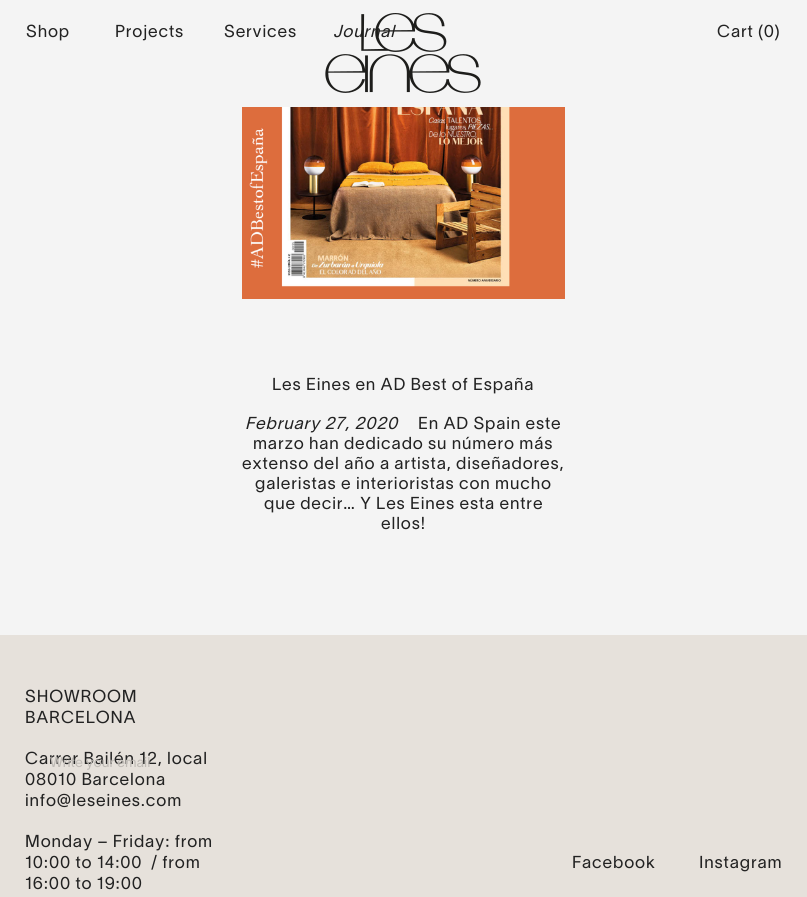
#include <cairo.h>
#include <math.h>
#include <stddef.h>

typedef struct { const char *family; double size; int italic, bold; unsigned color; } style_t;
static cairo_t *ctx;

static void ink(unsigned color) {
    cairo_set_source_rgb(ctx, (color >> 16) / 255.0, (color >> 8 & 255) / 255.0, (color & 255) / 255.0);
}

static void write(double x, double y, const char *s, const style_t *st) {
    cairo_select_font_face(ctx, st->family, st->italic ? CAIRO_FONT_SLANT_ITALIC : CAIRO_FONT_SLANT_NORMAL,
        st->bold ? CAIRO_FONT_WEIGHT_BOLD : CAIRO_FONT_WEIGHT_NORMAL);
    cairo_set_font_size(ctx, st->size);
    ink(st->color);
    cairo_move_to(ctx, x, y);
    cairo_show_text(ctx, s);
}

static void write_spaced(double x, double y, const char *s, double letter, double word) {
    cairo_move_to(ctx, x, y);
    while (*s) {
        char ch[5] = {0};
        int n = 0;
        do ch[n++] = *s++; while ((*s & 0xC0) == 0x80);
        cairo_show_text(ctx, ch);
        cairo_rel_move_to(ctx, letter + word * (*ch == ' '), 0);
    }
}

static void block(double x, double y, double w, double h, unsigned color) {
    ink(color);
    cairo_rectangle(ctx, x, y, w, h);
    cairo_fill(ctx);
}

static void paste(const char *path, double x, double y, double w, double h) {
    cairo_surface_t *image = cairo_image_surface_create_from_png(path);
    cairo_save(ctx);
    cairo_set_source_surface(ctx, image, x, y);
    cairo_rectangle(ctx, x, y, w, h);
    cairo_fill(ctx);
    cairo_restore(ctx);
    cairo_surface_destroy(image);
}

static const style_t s1 = {"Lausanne", 14, 0, 0, 0xbfbbb6};

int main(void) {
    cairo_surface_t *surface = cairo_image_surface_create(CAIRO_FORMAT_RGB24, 807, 897);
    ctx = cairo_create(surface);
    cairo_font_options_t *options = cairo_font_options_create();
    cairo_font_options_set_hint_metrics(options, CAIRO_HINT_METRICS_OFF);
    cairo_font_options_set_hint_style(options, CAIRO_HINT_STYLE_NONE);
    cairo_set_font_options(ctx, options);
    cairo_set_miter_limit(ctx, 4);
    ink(0xf4f4f4);
    cairo_paint(ctx);
    cairo_select_font_face(ctx, "Lausanne", CAIRO_FONT_SLANT_NORMAL, CAIRO_FONT_WEIGHT_NORMAL);
    cairo_set_font_size(ctx, 17);
    ink(0x222222);
    write_spaced(26, 37, "Shop", 0.85, 0);
    write_spaced(115, 37, "Projects", 0.85, 0);
    write_spaced(224, 37, "Services", 0.85, 0);
    cairo_select_font_face(ctx, "Lausanne", CAIRO_FONT_SLANT_ITALIC, CAIRO_FONT_WEIGHT_NORMAL);
    write_spaced(333, 37, "Journal", 0.85, 0);
    paste("pic1.png", 325, 13, 156, 80);
    cairo_select_font_face(ctx, "Lausanne", CAIRO_FONT_SLANT_NORMAL, CAIRO_FONT_WEIGHT_NORMAL);
    write_spaced(717, 37, "Cart (0)", 0.85, 0);
    paste("pic2.png", 242, 107, 323, 192);
    write_spaced(272, 390, "Les Eines en AD Best of España", 0.85, 0);
    cairo_select_font_face(ctx, "Lausanne", CAIRO_FONT_SLANT_ITALIC, CAIRO_FONT_WEIGHT_NORMAL);
    write_spaced(245, 429, "February 27, 2020", 0.85, 0);
    cairo_select_font_face(ctx, "Lausanne", CAIRO_FONT_SLANT_NORMAL, CAIRO_FONT_WEIGHT_NORMAL);
    write_spaced(418, 429, "En AD Spain este", 0.85, 0);
    write_spaced(253, 449, "marzo han dedicado su número más", 0.85, 0);
    write_spaced(242, 469, "extenso del año a artista, diseñadores,", 0.85, 0);
    write_spaced(255, 489, "galeristas e interioristas con mucho", 0.85, 0);
    write_spaced(264, 509, "que decir… Y Les Eines esta entre", 0.85, 0);
    write_spaced(381, 529, "ellos!", 0.85, 0);
    block(0, 635, 807, 262, 0xe6e1db);
    ink(0x222222);
    write_spaced(25, 702, "SHOWROOM", 0.85, 0);
    write_spaced(25, 723, "BARCELONA", 0.85, 0);
    write_spaced(25, 764, "Carrer Bailén 12, local", 0.85, 0);
    write_spaced(25, 785, "08010 Barcelona", 0.85, 0);
    write_spaced(25, 806, "info@leseines.com", 0.85, 0);
    write_spaced(25, 847, "Monday – Friday: from", 0.85, 0);
    write_spaced(25, 868, "10:00 to 14:00  / from", 0.85, 0);
    write_spaced(25, 889, "16:00 to 19:00", 0.85, 0);
    write_spaced(572, 868, "Facebook", 0.85, 0);
    write_spaced(699, 868, "Instagram", 0.85, 0);
    write(50, 767, "Write your email", &s1);
    cairo_surface_write_to_png(surface, "screenshot.png");
    cairo_font_options_destroy(options);
    cairo_destroy(ctx);
    cairo_surface_destroy(surface);
    return 0;
}
